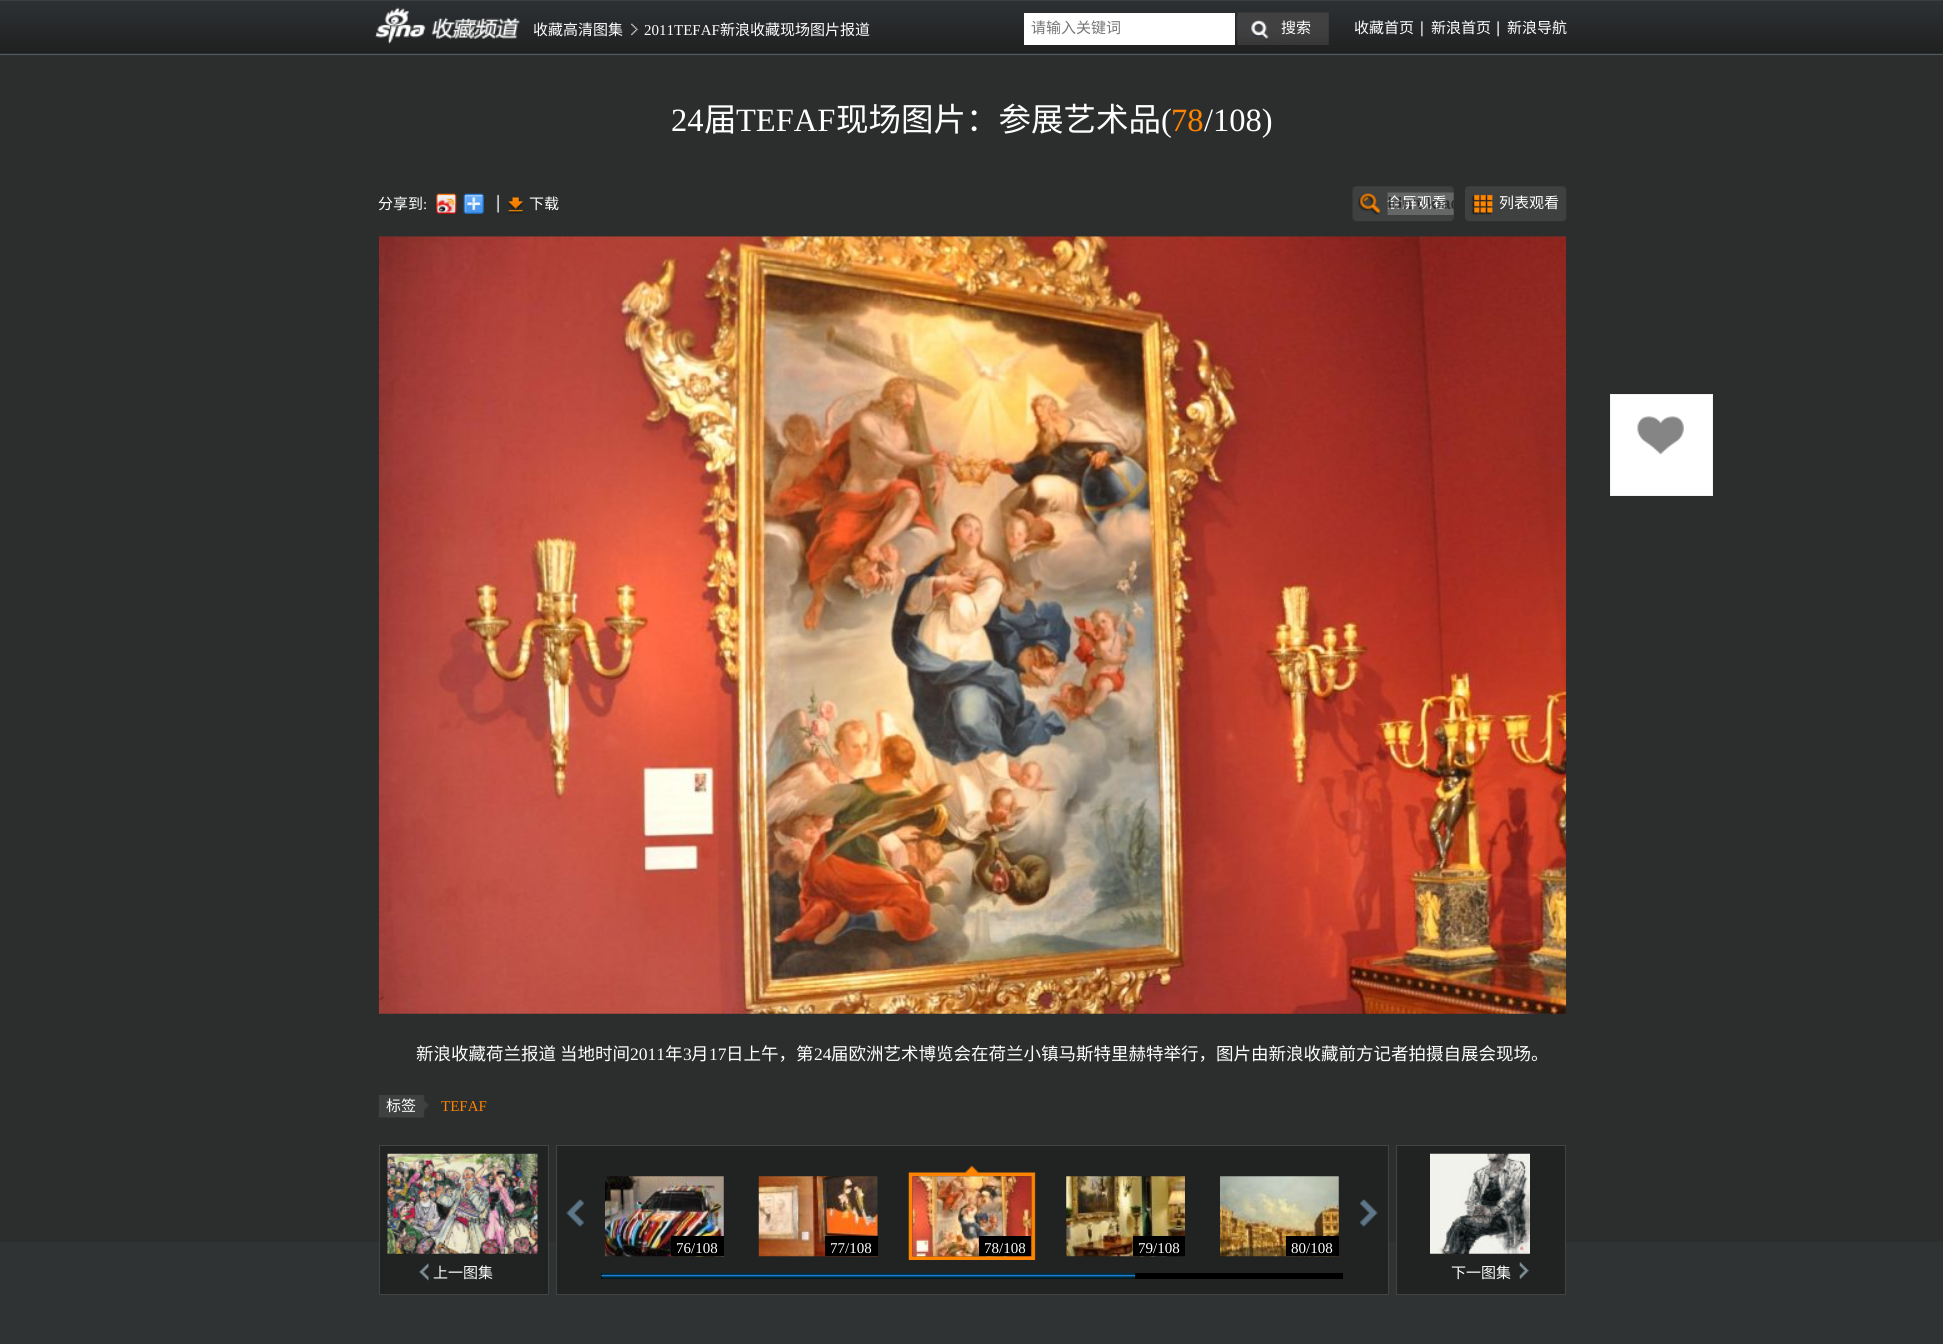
#include <cairo.h>
#include <math.h>
#include <stddef.h>

typedef struct { const char *family; double size; int italic, bold; unsigned color; } style_t;
static cairo_t *ctx;

static void ink(unsigned color) {
    cairo_set_source_rgb(ctx, (color >> 16) / 255.0, (color >> 8 & 255) / 255.0, (color & 255) / 255.0);
}

static void write(double x, double y, const char *s, const style_t *st) {
    cairo_select_font_face(ctx, st->family, st->italic ? CAIRO_FONT_SLANT_ITALIC : CAIRO_FONT_SLANT_NORMAL,
        st->bold ? CAIRO_FONT_WEIGHT_BOLD : CAIRO_FONT_WEIGHT_NORMAL);
    cairo_set_font_size(ctx, st->size);
    ink(st->color);
    cairo_move_to(ctx, x, y);
    cairo_show_text(ctx, s);
}

static void block(double x, double y, double w, double h, unsigned color) {
    ink(color);
    cairo_rectangle(ctx, x, y, w, h);
    cairo_fill(ctx);
}

static void paste(const char *path, double x, double y, double w, double h) {
    cairo_surface_t *image = cairo_image_surface_create_from_png(path);
    cairo_save(ctx);
    cairo_set_source_surface(ctx, image, x, y);
    cairo_rectangle(ctx, x, y, w, h);
    cairo_fill(ctx);
    cairo_restore(ctx);
    cairo_surface_destroy(image);
}

static const style_t s1 = {"Noto Sans CJK SC", 15, 0, 0, 0xffffff};
static const style_t s2 = {"Liberation Serif", 15, 0, 0, 0xffffff};
static const style_t s3 = {"Noto Sans CJK SC", 15, 0, 0, 0x757575};
static const style_t s4 = {"Liberation Serif", 32.5, 0, 0, 0xffffff};
static const style_t s5 = {"Noto Sans CJK SC", 32.5, 0, 0, 0xffffff};
static const style_t s6 = {"Liberation Serif", 32.5, 0, 0, 0xff8400};
static const style_t s7 = {"Noto Sans CJK SC", 17.5, 0, 0, 0xffffff};
static const style_t s8 = {"Liberation Serif", 17.5, 0, 0, 0xffffff};
static const style_t s9 = {"Liberation Serif", 15, 0, 0, 0xff8400};

int main(void) {
    cairo_surface_t *surface = cairo_image_surface_create(CAIRO_FORMAT_RGB24, 1943, 1344);
    ctx = cairo_create(surface);
    cairo_font_options_t *options = cairo_font_options_create();
    cairo_font_options_set_hint_metrics(options, CAIRO_HINT_METRICS_OFF);
    cairo_font_options_set_hint_style(options, CAIRO_HINT_STYLE_NONE);
    cairo_set_font_options(ctx, options);
    cairo_set_miter_limit(ctx, 4);
    ink(0x2c2d2d);
    cairo_paint(ctx);
    paste("pic1.png", 0, 0, 1943, 56);
    paste("pic2.png", 375, 7, 51, 37);
    paste("pic3.png", 431, 17, 89, 22);
    write(533, 35, "收藏高清图集", &s1);
    paste("pic4.png", 631, 23, 7, 13);
    write(644, 35, "2011TEFAF", &s2);
    write(720, 35, "新浪收藏现场图片报道", &s1);
    block(1024, 13, 211, 32, 0xffffff);
    write(1031, 33, "请输入关键词", &s3);
    paste("pic5.png", 1236, 12, 93, 33);
    write(1281, 33, "搜索", &s1);
    write(1354, 33, "收藏首页", &s1);
    paste("pic6.png", 1421, 21, 2, 16);
    write(1431, 33, "新浪首页", &s1);
    paste("pic7.png", 1497, 21, 2, 16);
    write(1507, 33, "新浪导航", &s1);
    write(671, 131, "24", &s4);
    write(704, 131, "届", &s5);
    write(736, 131, "TEFAF", &s4);
    write(836, 131, "现场图片：参展艺术品", &s5);
    write(1161, 131, "(", &s4);
    write(1171, 131, "78", &s6);
    write(1204, 131, "/108)", &s4);
    write(378, 209, "分享到", &s1);
    write(423, 209, ":", &s2);
    paste("pic8.png", 436, 193, 21, 21);
    paste("pic9.png", 463, 193, 21, 21);
    paste("pic10.png", 496, 194, 3, 19);
    paste("pic11.png", 508, 197, 15, 17);
    write(529, 209, "下载", &s1);
    paste("pic12.png", 1352, 186, 102, 36);
    paste("pic13.png", 1358, 193, 22, 22);
    write(1387, 208, "全屏观看", &s1);
    paste("pic14.png", 1387, 192, 67, 23);
    paste("pic15.png", 1465, 186, 102, 36);
    paste("pic16.png", 1471, 194, 22, 21);
    write(1499, 208, "列表观看", &s1);
    paste("pic17.png", 378, 236, 1189, 778);
    write(416, 1060, "新浪收藏荷兰报道 当地时间", &s7);
    write(630, 1060, "2011", &s8);
    write(665, 1060, "年", &s7);
    write(683, 1060, "3", &s8);
    write(691, 1060, "月", &s7);
    write(709, 1060, "17", &s8);
    write(726, 1060, "日上午，第", &s7);
    write(814, 1060, "24", &s8);
    write(831, 1060, "届欧洲艺术博览会在荷兰小镇马斯特里赫特举行，图片由新浪收藏前方记者拍摄自展会现场。", &s7);
    paste("pic18.png", 378, 1095, 51, 23);
    write(386, 1111, "标签", &s1);
    write(441, 1111, "TEFAF", &s9);
    block(0, 1242, 1943, 102, 0x303334);
    ink(0x212222);
    cairo_rectangle(ctx, 556.5, 1145.5, 832, 149);
    cairo_fill_preserve(ctx);
    ink(0x434343);
    cairo_set_line_width(ctx, 1);
    cairo_stroke(ctx);
    paste("pic19.png", 566, 1199, 18, 28);
    paste("pic20.png", 1359, 1198, 19, 29);
    paste("pic21.png", 605, 1176, 119, 81);
    block(671, 1236, 53, 20, 0x000000);
    write(676, 1253, "76/108", &s2);
    paste("pic22.png", 758, 1176, 120, 81);
    block(825, 1236, 53, 20, 0x000000);
    write(830, 1253, "77/108", &s2);
    paste("pic23.png", 908, 1165, 128, 95);
    paste("pic24.png", 912, 1176, 120, 81);
    block(979, 1236, 52, 20, 0x000000);
    write(984, 1253, "78/108", &s2);
    paste("pic25.png", 1066, 1176, 119, 81);
    block(1133, 1236, 52, 20, 0x000000);
    write(1138, 1253, "79/108", &s2);
    paste("pic26.png", 1220, 1176, 119, 81);
    block(1286, 1236, 53, 20, 0x000000);
    write(1291, 1253, "80/108", &s2);
    block(601, 1273, 742, 6, 0x000000);
    paste("pic27.png", 601, 1272, 534, 7);
    ink(0x212222);
    cairo_rectangle(ctx, 379.5, 1145.5, 169, 149);
    cairo_fill_preserve(ctx);
    ink(0x434343);
    cairo_stroke(ctx);
    paste("pic28.png", 387, 1153, 151, 101);
    paste("pic29.png", 419, 1263, 10, 18);
    write(433, 1278, "上一图集", &s1);
    ink(0x212222);
    cairo_rectangle(ctx, 1396.5, 1145.5, 169, 149);
    cairo_fill_preserve(ctx);
    ink(0x434343);
    cairo_stroke(ctx);
    paste("pic30.png", 1430, 1153, 100, 101);
    paste("pic31.png", 1519, 1262, 10, 17);
    write(1451, 1278, "下一图集", &s1);
    block(1611, 395, 101, 100, 0xffffff);
    paste("pic32.png", 1637, 416, 47, 39);
    cairo_rectangle(ctx, 1610.5, 394.5, 102, 101);
    ink(0xf3f3f3);
    cairo_stroke(ctx);
    cairo_surface_write_to_png(surface, "screenshot.png");
    cairo_font_options_destroy(options);
    cairo_destroy(ctx);
    cairo_surface_destroy(surface);
    return 0;
}
